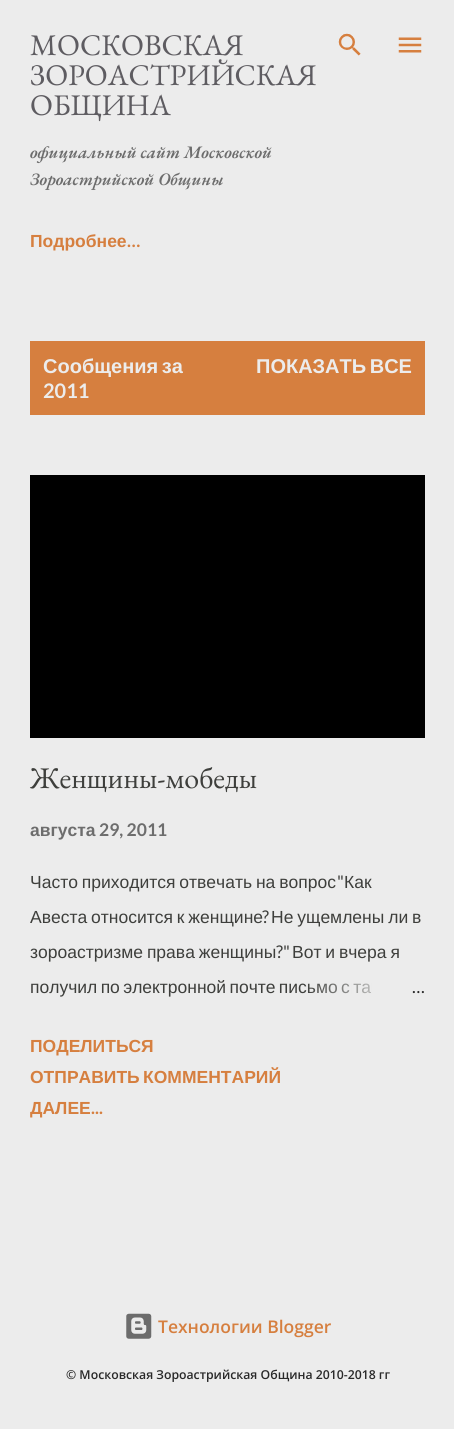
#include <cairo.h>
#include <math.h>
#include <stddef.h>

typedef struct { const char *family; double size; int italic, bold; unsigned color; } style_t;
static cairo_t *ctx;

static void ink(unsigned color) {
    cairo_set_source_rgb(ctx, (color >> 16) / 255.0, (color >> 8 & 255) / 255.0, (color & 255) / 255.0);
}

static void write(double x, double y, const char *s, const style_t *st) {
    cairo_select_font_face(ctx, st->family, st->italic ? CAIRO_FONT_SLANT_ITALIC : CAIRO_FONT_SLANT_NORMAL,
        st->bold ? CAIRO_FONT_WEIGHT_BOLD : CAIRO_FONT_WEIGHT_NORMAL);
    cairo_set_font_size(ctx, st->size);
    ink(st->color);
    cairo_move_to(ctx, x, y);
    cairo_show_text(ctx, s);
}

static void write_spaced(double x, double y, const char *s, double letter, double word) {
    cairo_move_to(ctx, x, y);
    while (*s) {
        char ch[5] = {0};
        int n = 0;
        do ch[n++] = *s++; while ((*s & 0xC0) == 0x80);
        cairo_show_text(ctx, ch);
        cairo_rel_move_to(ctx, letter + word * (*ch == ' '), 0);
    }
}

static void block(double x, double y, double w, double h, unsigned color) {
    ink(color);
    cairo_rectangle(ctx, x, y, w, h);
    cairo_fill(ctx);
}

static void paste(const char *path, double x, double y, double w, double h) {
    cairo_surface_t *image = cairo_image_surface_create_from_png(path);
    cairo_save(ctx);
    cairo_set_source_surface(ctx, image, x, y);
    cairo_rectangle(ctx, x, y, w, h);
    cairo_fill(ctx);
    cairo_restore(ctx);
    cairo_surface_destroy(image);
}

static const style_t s1 = {"EB Garamond", 30, 0, 0, 0x5e5c61};
static const style_t s2 = {"EB Garamond SemiBold", 17.5, 1, 0, 0x6d6d6d};
static const style_t s3 = {"Liberation Sans", 17.5, 0, 1, 0xd67f3f};
static const style_t s4 = {"Lato", 17.5, 0, 1, 0xd67f3f};
static const style_t s5 = {"Lato", 20, 0, 1, 0xececec};
static const style_t s6 = {"EB Garamond", 30, 0, 0, 0x3e3f3c};
static const style_t s7 = {"Liberation Sans", 17.5, 0, 1, 0x6d6d6d};
static const style_t s8 = {"Lato", 17.5, 0, 1, 0x6d6d6d};
static const style_t s9 = {"Lato", 17.5, 0, 0, 0x3e3f3c};
static const style_t s10 = {"Liberation Sans", 17.5, 0, 0, 0x3e3f3c};
static const style_t s11 = {"Lato", 17.5, 0, 0, 0x292929};
static const style_t s12 = {"Open Sans SemiBold", 17.5, 0, 0, 0xd67f3f};
static const style_t s13 = {"Open Sans SemiBold", 12.25, 0, 0, 0x292929};

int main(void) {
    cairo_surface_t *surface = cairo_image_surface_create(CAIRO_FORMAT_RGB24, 454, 1429);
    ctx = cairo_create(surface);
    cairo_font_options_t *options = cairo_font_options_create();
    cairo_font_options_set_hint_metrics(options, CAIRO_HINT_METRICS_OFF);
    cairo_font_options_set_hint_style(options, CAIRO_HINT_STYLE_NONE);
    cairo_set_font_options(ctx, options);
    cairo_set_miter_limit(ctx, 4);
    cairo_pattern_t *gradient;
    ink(0xececec);
    cairo_paint(ctx);
    write(30, 55, "МОСКОВСКАЯ", &s1);
    write(30, 85, "ЗОРОАСТРИЙСКАЯ", &s1);
    write(30, 115, "ОБЩИНА", &s1);
    write(30, 158, "официальный сайт Московской", &s2);
    write(30, 185, "Зороастрийской Общины", &s2);
    paste("pic1.png", 338, 33, 23, 23);
    paste("pic2.png", 398, 37, 24, 16);
    write(30, 247, "Подробнее", &s3);
    write(127, 247, "…", &s4);
    block(30, 341, 395, 74, 0xd67f3f);
    cairo_select_font_face(ctx, "Liberation Sans", CAIRO_FONT_SLANT_NORMAL, CAIRO_FONT_WEIGHT_BOLD);
    cairo_set_font_size(ctx, 20);
    ink(0xececec);
    write_spaced(43, 373, "Сообщения за", 0, -2);
    write(43, 398, "2011", &s5);
    cairo_select_font_face(ctx, "Liberation Sans", CAIRO_FONT_SLANT_NORMAL, CAIRO_FONT_WEIGHT_BOLD);
    write_spaced(256, 373, "ПОКАЗАТЬ ВСЕ", 0, -2);
    block(30, 475, 395, 263, 0x000000);
    write(30, 788, "Женщины-мобеды", &s6);
    write(30, 836, "августа", &s7);
    write(99, 836, "29, 2011", &s8);
    cairo_select_font_face(ctx, "Liberation Sans", CAIRO_FONT_SLANT_NORMAL, CAIRO_FONT_WEIGHT_NORMAL);
    ink(0x3e3f3c);
    write_spaced(30, 888, "Часто приходится отвечать на вопрос", 0, -1);
    write(337, 888, "\"", &s9);
    write(344, 888, "Как", &s10);
    write_spaced(30, 923, "Авеста относится к женщине", 0, -1);
    write(262, 923, "?", &s9);
    cairo_select_font_face(ctx, "Liberation Sans", CAIRO_FONT_SLANT_NORMAL, CAIRO_FONT_WEIGHT_NORMAL);
    write_spaced(271, 923, "Не ущемлены ли в", 0, -1);
    write_spaced(30, 958, "зороастризме права женщины", 0, -1);
    write(276, 958, "?\"", &s9);
    cairo_select_font_face(ctx, "Liberation Sans", CAIRO_FONT_SLANT_NORMAL, CAIRO_FONT_WEIGHT_NORMAL);
    write_spaced(292, 958, "Вот и вчера я", 0, -1);
    write_spaced(30, 993, "получил по электронной почте письмо с та", 0, -1.5);
    gradient = cairo_pattern_create_linear(425, 986, 305, 986);
    cairo_pattern_add_color_stop_rgba(gradient, 0, 0.925, 0.925, 0.925, 1);
    cairo_pattern_add_color_stop_rgba(gradient, 0.2, 0.925, 0.925, 0.925, 1);
    cairo_pattern_add_color_stop_rgba(gradient, 1, 0.925, 0.925, 0.925, 0);
    cairo_set_source(ctx, gradient);
    cairo_pattern_destroy(gradient);
    cairo_rectangle(ctx, 308, 983, 64, 11);
    cairo_fill(ctx);
    write(412, 993, "…", &s11);
    write(30, 1052, "ПОДЕЛИТЬСЯ", &s3);
    write_spaced(30, 1083, "ОТПРАВИТЬ КОММЕНТАРИЙ", 0, -1.5);
    write(30, 1114, "ДАЛЕЕ", &s3);
    write(91, 1114, "...", &s4);
    paste("pic3.png", 126, 1313, 26, 26);
    write(158, 1333, "Технологии Blogger", &s12);
    write(66, 1379, "© Московская Зороастрийская Община 2010-2018 гг", &s13);
    cairo_surface_write_to_png(surface, "screenshot.png");
    cairo_font_options_destroy(options);
    cairo_destroy(ctx);
    cairo_surface_destroy(surface);
    return 0;
}
